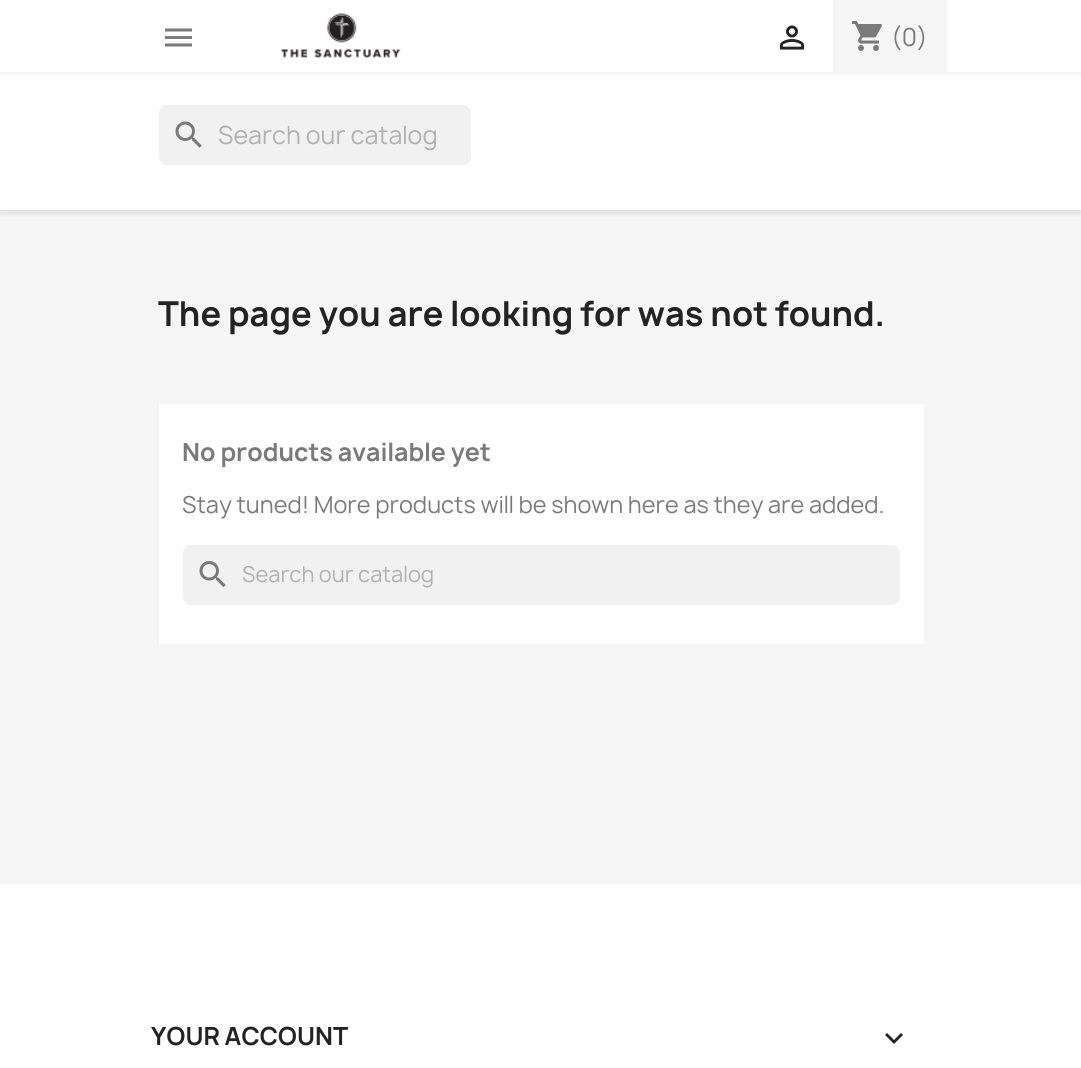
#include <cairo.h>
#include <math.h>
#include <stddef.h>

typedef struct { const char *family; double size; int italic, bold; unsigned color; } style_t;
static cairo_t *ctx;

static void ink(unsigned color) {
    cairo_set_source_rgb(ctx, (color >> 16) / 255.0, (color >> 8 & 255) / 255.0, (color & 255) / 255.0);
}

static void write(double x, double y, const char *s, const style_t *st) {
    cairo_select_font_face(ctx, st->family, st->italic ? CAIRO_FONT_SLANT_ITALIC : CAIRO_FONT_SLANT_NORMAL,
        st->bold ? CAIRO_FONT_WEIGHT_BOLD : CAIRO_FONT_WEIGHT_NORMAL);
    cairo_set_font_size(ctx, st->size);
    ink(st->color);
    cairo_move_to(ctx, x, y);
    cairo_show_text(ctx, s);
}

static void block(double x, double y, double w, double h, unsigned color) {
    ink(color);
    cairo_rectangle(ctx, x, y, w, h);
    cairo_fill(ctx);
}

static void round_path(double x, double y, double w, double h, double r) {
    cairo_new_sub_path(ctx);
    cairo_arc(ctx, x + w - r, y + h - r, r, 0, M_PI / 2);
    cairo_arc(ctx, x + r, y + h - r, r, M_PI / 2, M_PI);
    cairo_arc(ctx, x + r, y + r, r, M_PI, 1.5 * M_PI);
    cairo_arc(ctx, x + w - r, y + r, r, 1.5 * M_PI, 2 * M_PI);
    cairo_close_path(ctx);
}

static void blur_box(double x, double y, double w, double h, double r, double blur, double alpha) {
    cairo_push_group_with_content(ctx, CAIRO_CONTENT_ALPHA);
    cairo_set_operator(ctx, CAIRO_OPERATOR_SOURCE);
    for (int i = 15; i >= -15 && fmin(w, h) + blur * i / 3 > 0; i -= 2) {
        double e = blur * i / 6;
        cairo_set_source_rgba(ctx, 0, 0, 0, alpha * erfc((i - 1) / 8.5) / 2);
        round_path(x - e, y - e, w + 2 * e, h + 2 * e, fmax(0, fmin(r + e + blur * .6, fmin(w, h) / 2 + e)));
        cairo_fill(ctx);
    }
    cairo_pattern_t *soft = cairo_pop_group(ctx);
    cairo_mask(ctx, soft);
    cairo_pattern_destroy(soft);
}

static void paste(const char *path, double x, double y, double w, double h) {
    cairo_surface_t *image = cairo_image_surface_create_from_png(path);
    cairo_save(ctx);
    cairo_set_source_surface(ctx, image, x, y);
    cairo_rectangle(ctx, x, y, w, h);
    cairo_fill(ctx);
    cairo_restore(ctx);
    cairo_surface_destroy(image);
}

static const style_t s1 = {"Manrope", 24, 0, 0, 0x7a7a7a};
static const style_t s2 = {"Manrope", 24, 0, 0, 0xb1b1b1};
static const style_t s3 = {"Manrope", 33, 0, 1, 0x232323};
static const style_t s4 = {"Manrope", 24, 0, 1, 0x7a7a7a};
static const style_t s5 = {"Manrope", 22.5, 0, 0, 0x7a7a7a};
static const style_t s6 = {"Manrope", 21, 0, 0, 0xb1b1b1};
static const style_t s7 = {"Manrope", 24, 0, 1, 0x232323};

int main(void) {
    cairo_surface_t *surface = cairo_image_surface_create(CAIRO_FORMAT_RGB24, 1081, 1068);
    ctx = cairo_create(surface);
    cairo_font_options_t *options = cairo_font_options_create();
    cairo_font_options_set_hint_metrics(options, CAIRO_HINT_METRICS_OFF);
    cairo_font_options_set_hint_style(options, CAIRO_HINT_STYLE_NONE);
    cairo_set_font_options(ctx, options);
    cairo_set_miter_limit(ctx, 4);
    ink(0xffffff);
    cairo_paint(ctx);
    block(0, 210, 1081, 674, 0xf6f6f6);
    cairo_save(ctx);
    cairo_rectangle(ctx, 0, 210, 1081, 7);
    cairo_clip(ctx);
    ink(0x000000);
    blur_box(0, 3, 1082, 210, 0, 4, 0.11);
    cairo_restore(ctx);
    block(0, 72, 1081, 3, 0xf6f6f6);
    paste("pic1.png", 165, 28, 27, 19);
    paste("pic2.png", 281, 13, 120, 45);
    paste("pic3.png", 779, 25, 26, 25);
    block(833, 0, 114, 72, 0xf6f6f6);
    paste("pic4.png", 852, 21, 30, 30);
    write(891, 46, "(0)", &s1);
    ink(0xf1f1f1);
    round_path(159, 105, 312, 60, 8);
    cairo_fill(ctx);
    paste("pic5.png", 175, 121, 27, 27);
    write(218, 144, "Search our catalog", &s2);
    write(158, 326, "The page you are looking for was not found.", &s3);
    block(159, 404, 765, 240, 0xffffff);
    write(182, 461, "No products available yet", &s4);
    write(182, 513, "Stay tuned! More products will be shown here as they are added.", &s5);
    ink(0xf1f1f1);
    round_path(183, 545, 717, 60, 8);
    cairo_fill(ctx);
    paste("pic6.png", 199, 561, 27, 27);
    write(242, 582, "Search our catalog", &s6);
    write(151, 1045, "YOUR ACCOUNT", &s7);
    cairo_new_path(ctx);
    cairo_move_to(ctx, 887, 1033);
    cairo_line_to(ctx, 894, 1040);
    cairo_line_to(ctx, 901, 1033);
    cairo_line_to(ctx, 903, 1035);
    cairo_line_to(ctx, 894, 1044);
    cairo_line_to(ctx, 885, 1035);
    cairo_close_path(ctx);
    cairo_fill(ctx);
    cairo_surface_write_to_png(surface, "screenshot.png");
    cairo_font_options_destroy(options);
    cairo_destroy(ctx);
    cairo_surface_destroy(surface);
    return 0;
}
